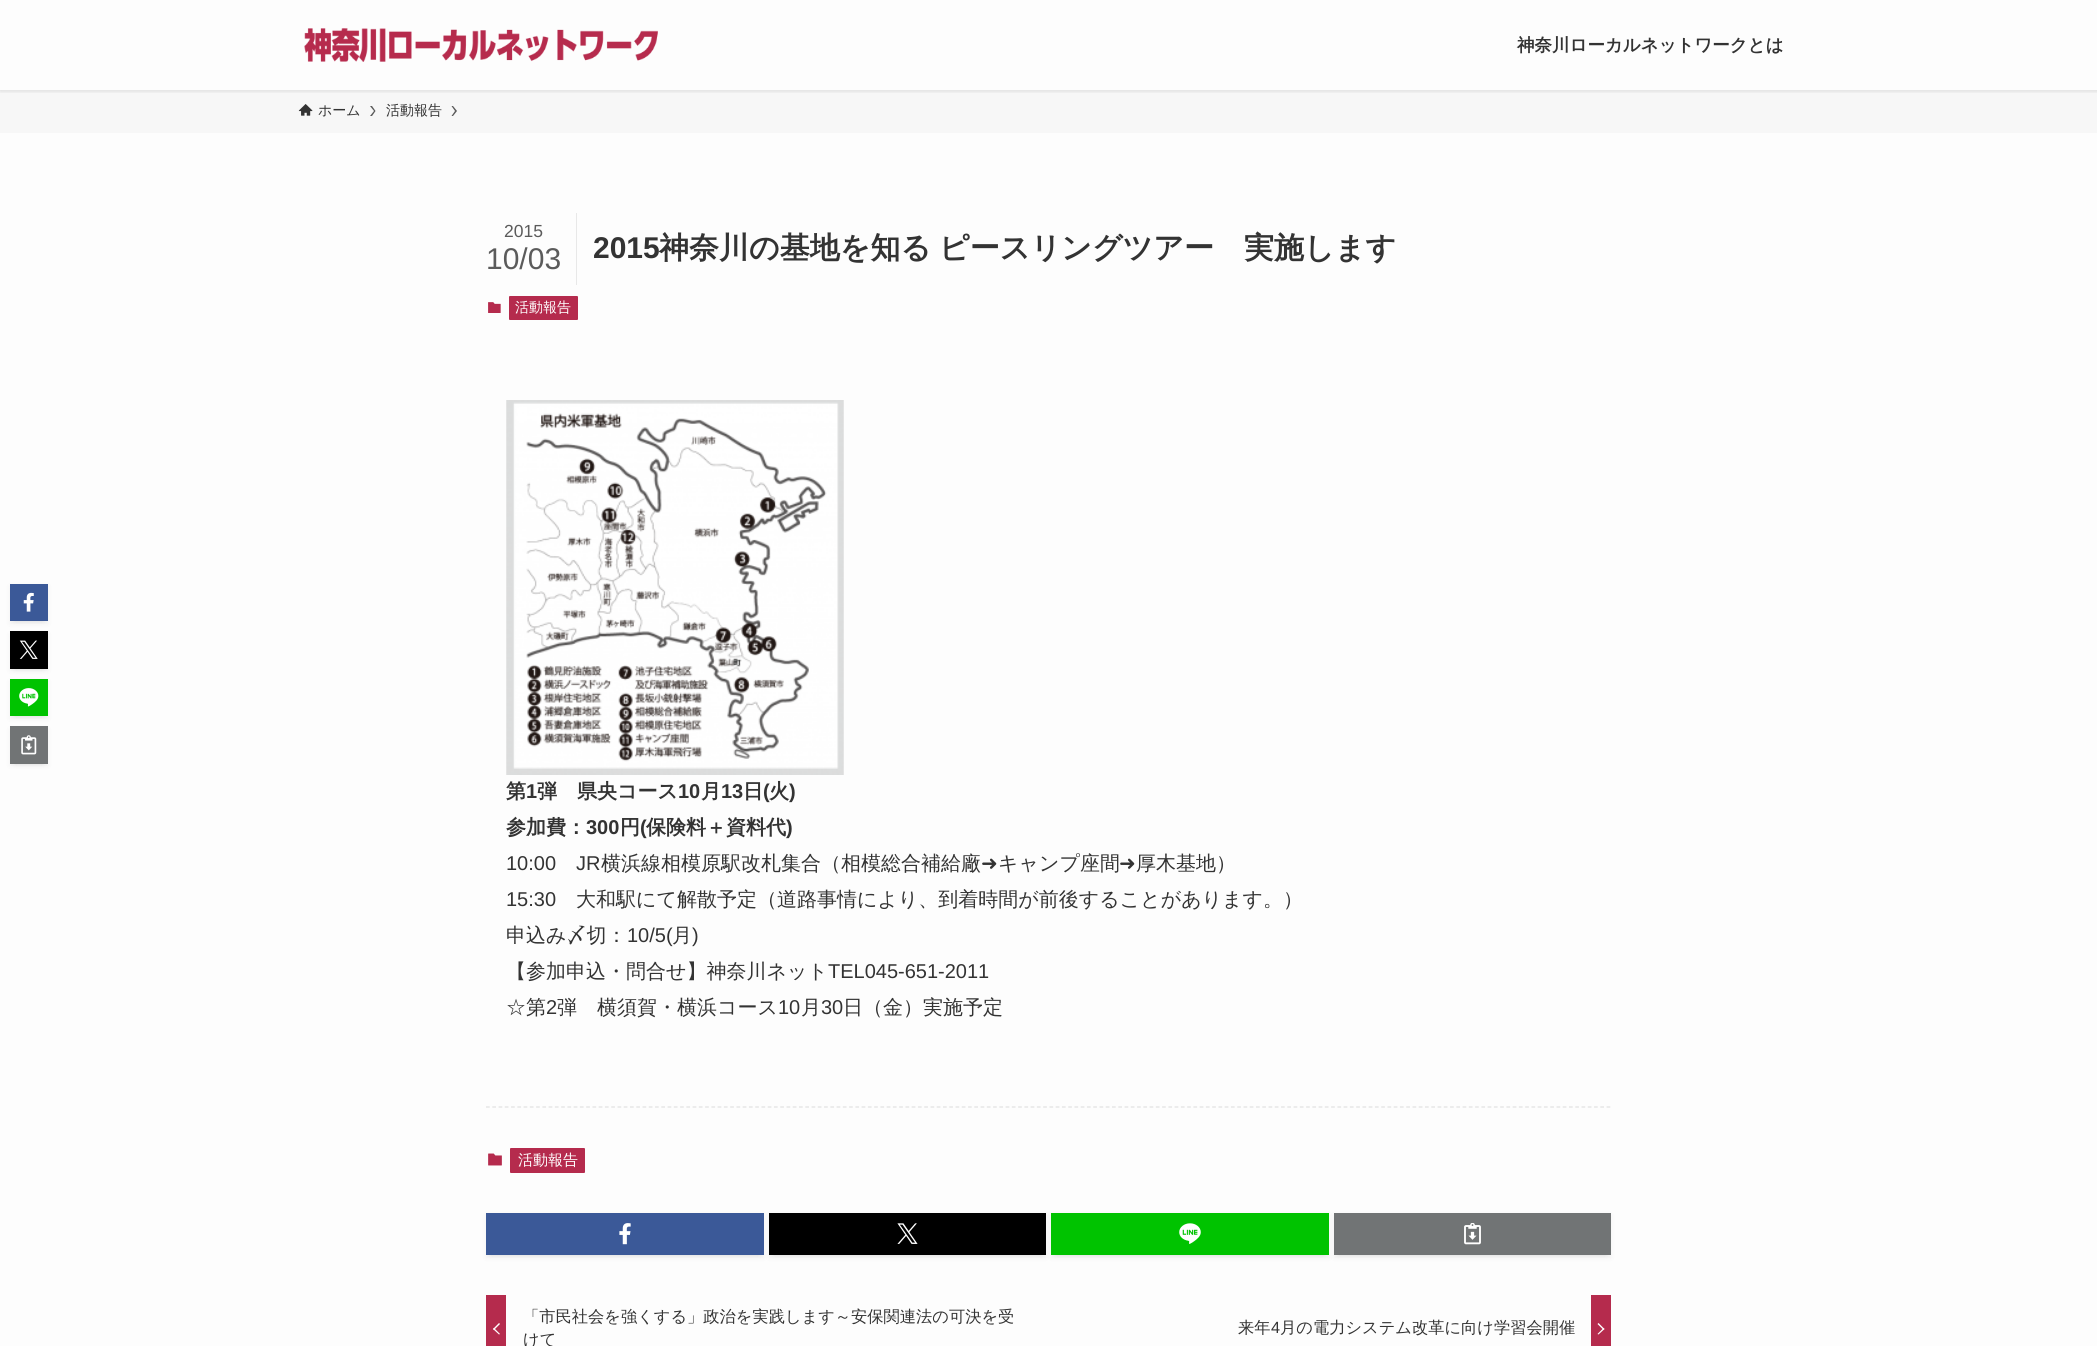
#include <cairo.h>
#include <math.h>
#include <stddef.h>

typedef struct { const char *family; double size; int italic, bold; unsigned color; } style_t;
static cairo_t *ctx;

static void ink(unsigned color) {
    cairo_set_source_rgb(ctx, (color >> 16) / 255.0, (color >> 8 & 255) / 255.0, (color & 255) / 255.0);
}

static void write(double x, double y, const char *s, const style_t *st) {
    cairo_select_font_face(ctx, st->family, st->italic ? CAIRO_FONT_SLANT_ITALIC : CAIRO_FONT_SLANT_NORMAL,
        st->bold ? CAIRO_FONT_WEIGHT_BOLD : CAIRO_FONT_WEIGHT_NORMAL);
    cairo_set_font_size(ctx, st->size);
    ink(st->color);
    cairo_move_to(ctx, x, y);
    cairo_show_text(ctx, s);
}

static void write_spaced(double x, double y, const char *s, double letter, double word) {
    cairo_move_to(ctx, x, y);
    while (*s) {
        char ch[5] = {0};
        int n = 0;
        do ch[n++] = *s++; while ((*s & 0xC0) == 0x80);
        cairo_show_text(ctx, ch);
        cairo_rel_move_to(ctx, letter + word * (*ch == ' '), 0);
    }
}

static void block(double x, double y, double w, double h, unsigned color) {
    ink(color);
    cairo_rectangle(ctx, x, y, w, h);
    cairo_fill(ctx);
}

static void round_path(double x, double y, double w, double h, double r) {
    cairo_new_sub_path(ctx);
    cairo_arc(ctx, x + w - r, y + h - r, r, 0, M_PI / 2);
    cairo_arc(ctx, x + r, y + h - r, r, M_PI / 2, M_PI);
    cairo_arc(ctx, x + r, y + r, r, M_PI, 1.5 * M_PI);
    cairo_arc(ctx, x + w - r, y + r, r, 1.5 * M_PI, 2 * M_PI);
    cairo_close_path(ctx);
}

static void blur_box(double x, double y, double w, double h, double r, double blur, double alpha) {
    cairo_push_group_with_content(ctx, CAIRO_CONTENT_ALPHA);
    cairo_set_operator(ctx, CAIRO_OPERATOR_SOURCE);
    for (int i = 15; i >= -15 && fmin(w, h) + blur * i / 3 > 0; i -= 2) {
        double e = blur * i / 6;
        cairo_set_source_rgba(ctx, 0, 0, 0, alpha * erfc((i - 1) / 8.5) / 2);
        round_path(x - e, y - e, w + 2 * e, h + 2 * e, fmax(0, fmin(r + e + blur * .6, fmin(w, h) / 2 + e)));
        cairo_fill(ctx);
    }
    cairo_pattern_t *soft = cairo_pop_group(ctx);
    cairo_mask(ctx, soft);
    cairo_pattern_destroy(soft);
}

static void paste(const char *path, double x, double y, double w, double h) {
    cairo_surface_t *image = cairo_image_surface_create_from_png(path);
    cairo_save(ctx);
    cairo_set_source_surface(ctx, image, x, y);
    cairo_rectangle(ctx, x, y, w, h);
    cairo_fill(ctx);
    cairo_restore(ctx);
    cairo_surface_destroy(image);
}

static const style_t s1 = {"WenQuanYi Zen Hei", 17.5, 0, 1, 0x333333};
static const style_t s2 = {"WenQuanYi Zen Hei Medium", 14, 0, 0, 0x333333};
static const style_t s3 = {"Liberation Sans", 17.5, 0, 0, 0x5b5b5b};
static const style_t s4 = {"Liberation Sans", 30, 0, 0, 0x5b5b5b};
static const style_t s5 = {"Liberation Sans", 30, 0, 1, 0x333333};
static const style_t s6 = {"WenQuanYi Zen Hei Medium", 14, 0, 0, 0xffffff};
static const style_t s7 = {"WenQuanYi Zen Hei", 20, 0, 1, 0x333333};
static const style_t s8 = {"Liberation Sans", 20, 0, 1, 0x333333};
static const style_t s9 = {"Liberation Sans", 20, 0, 0, 0x333333};
static const style_t s10 = {"WenQuanYi Zen Hei Medium", 20, 0, 0, 0x333333};
static const style_t s11 = {"DejaVu Sans", 20, 0, 0, 0x333333};
static const style_t s12 = {"WenQuanYi Zen Hei Medium", 15, 0, 0, 0xffffff};
static const style_t s13 = {"WenQuanYi Zen Hei Medium", 16.25, 0, 0, 0x333333};
static const style_t s14 = {"Liberation Sans", 16.25, 0, 0, 0x333333};

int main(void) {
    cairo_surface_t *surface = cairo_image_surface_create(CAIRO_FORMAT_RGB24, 2097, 1346);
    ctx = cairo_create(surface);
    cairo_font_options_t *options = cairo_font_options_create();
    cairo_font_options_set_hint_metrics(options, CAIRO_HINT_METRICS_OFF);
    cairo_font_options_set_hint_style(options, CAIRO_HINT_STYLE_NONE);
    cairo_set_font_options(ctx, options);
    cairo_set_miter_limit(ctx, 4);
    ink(0xfdfdfd);
    cairo_paint(ctx);
    block(0, 90, 2097, 43, 0xf7f7f7);
    cairo_save(ctx);
    cairo_rectangle(ctx, 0, 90, 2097, 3);
    cairo_clip(ctx);
    ink(0x000000);
    blur_box(0, 1, 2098, 90, 0, 2.5, 0.12);
    cairo_restore(ctx);
    paste("pic1.png", 304, 28, 354, 34);
    write(1517, 51, "神奈川ローカルネットワークとは", &s1);
    paste("pic2.png", 298, 104, 15, 12);
    write(318, 115, "ホーム", &s2);
    ink(0x5a5a5a);
    cairo_new_path(ctx);
    cairo_move_to(ctx, 372, 106);
    cairo_line_to(ctx, 370, 106);
    cairo_line_to(ctx, 374, 111);
    cairo_line_to(ctx, 370, 116);
    cairo_line_to(ctx, 372, 116);
    cairo_line_to(ctx, 375.5, 111);
    cairo_close_path(ctx);
    cairo_fill(ctx);
    write(386, 115, "活動報告", &s2);
    ink(0x5a5a5a);
    cairo_new_path(ctx);
    cairo_move_to(ctx, 453, 106);
    cairo_line_to(ctx, 451.5, 106);
    cairo_line_to(ctx, 455, 111);
    cairo_line_to(ctx, 451.5, 116);
    cairo_line_to(ctx, 453, 116);
    cairo_line_to(ctx, 457, 111);
    cairo_close_path(ctx);
    cairo_fill(ctx);
    block(576, 213, 1, 72, 0xe8e8e8);
    write(504, 237, "2015", &s3);
    write(486, 269, "10/03", &s4);
    write(593, 258, "2015", &s5);
    cairo_select_font_face(ctx, "WenQuanYi Zen Hei", CAIRO_FONT_SLANT_NORMAL, CAIRO_FONT_WEIGHT_BOLD);
    write_spaced(659, 258, "神奈川の基地を知る ピースリングツアー　実施します", 0, -1);
    paste("pic3.png", 488, 302, 13, 11);
    ink(0xb52b4d);
    round_path(509, 296, 69, 24, 1);
    cairo_fill(ctx);
    write(515, 312, "活動報告", &s6);
    ink(0x000000);
    blur_box(15, 594, 28, 27, 0, 2.5, 0.1);
    blur_box(10, 586, 38, 38, 0, 2.5, 0.05);
    block(10, 584, 38, 37, 0x3b5998);
    paste("pic4.png", 23, 592, 11, 20);
    ink(0x000000);
    blur_box(15, 641, 28, 28, 0, 2.5, 0.1);
    blur_box(10, 634, 38, 37, 0, 2.5, 0.05);
    block(10, 631, 38, 38, 0x000000);
    paste("pic5.png", 19, 640, 19, 19);
    ink(0x000000);
    blur_box(15, 689, 28, 27, 0, 2.5, 0.1);
    blur_box(10, 681, 38, 38, 0, 2.5, 0.05);
    block(10, 679, 38, 37, 0x00c300);
    paste("pic6.png", 19, 688, 20, 19);
    ink(0x000000);
    blur_box(15, 736, 28, 28, 0, 2.5, 0.1);
    blur_box(10, 729, 38, 37, 0, 2.5, 0.05);
    block(10, 726, 38, 38, 0x717475);
    paste("pic7.png", 21, 735, 16, 20);
    paste("pic8.png", 506, 400, 338, 375);
    write(506, 798, "第", &s7);
    write(526, 798, "1", &s8);
    write(537, 798, "弾　県央コース", &s7);
    write(678, 798, "10", &s8);
    write(701, 798, "月", &s7);
    write(721, 798, "13", &s8);
    write(743, 798, "日", &s7);
    write(763, 798, "(", &s8);
    write(769, 798, "火", &s7);
    write(789, 798, ")", &s8);
    write(506, 834, "参加費：", &s7);
    write(586, 834, "300", &s8);
    write(620, 834, "円", &s7);
    write(640, 834, "(", &s8);
    write(646, 834, "保険料＋資料代", &s7);
    write(786, 834, ")", &s8);
    write(506, 870, "10:00", &s9);
    write(576, 870, "JR", &s9);
    write(601, 870, "横浜線相模原駅改札集合（相模総合補給廠", &s10);
    write(981, 870, "➜", &s11);
    write(998, 870, "キャンプ座間", &s10);
    write(1119, 870, "➜", &s11);
    write(1136, 870, "厚木基地）", &s10);
    write(506, 906, "15:30", &s9);
    write(576, 906, "大和駅にて解散予定（道路事情により、到着時間が前後することがあります。）", &s10);
    write(506, 942, "申込み〆切：", &s10);
    write(627, 942, "10/5(", &s9);
    write(672, 942, "月", &s10);
    write(692, 942, ")", &s9);
    write(506, 978, "【参加申込・問合せ】神奈川ネット", &s10);
    write(828, 978, "TEL045-651-2011", &s9);
    write(506, 1014, "☆第", &s10);
    write(546, 1014, "2", &s9);
    write(557, 1014, "弾　横須賀・横浜コース", &s10);
    write(778, 1014, "10", &s9);
    write(801, 1014, "月", &s10);
    write(821, 1014, "30", &s9);
    write(843, 1014, "日（金）実施予定", &s10);
    cairo_new_path(ctx);
    cairo_move_to(ctx, 486, 1107);
    cairo_line_to(ctx, 1611, 1107);
    ink(0xe2e2e2);
    cairo_set_line_width(ctx, 1.2);
    cairo_set_dash(ctx, (double[]){3.75, 2.51}, 2, 0);
    cairo_stroke(ctx);
    paste("pic9.png", 488, 1153, 14, 13);
    ink(0xb52b4d);
    round_path(510, 1148, 75, 25, 1);
    cairo_fill(ctx);
    write(518, 1165, "活動報告", &s12);
    ink(0x000000);
    blur_box(491, 1223, 268, 32, 0, 2.5, 0.1);
    blur_box(486, 1215, 278, 43, 0, 2.5, 0.05);
    block(486, 1213, 278, 42, 0x3b5998);
    paste("pic10.png", 619, 1223, 12, 22);
    ink(0x000000);
    blur_box(774, 1223, 267, 32, 0, 2.5, 0.1);
    blur_box(769, 1215, 277, 43, 0, 2.5, 0.05);
    block(769, 1213, 277, 42, 0x000000);
    paste("pic11.png", 897, 1223, 21, 21);
    ink(0x000000);
    blur_box(1056, 1223, 268, 32, 0, 2.5, 0.1);
    blur_box(1051, 1215, 278, 43, 0, 2.5, 0.05);
    block(1051, 1213, 278, 42, 0x00c300);
    paste("pic12.png", 1179, 1223, 22, 21);
    ink(0x000000);
    blur_box(1339, 1223, 267, 32, 0, 2.5, 0.1);
    blur_box(1334, 1215, 277, 43, 0, 2.5, 0.05);
    block(1334, 1213, 277, 42, 0x717475);
    paste("pic13.png", 1464, 1223, 17, 22);
    block(486, 1295, 20, 51, 0xb52b4d);
    ink(0xffffff);
    cairo_new_path(ctx);
    cairo_move_to(ctx, 494, 1328);
    cairo_line_to(ctx, 500, 1334);
    cairo_line_to(ctx, 499, 1334.5);
    cairo_line_to(ctx, 493, 1329);
    cairo_close_path(ctx);
    cairo_fill(ctx);
    cairo_new_path(ctx);
    cairo_move_to(ctx, 499, 1323);
    cairo_line_to(ctx, 500, 1324);
    cairo_line_to(ctx, 494, 1330);
    cairo_line_to(ctx, 493, 1329);
    cairo_close_path(ctx);
    cairo_fill(ctx);
    write(523, 1322, "「市民社会を強くする」政治を実践します～安保関連法の可決を受", &s13);
    write(523, 1345, "けて", &s13);
    block(1591, 1295, 20, 51, 0xb52b4d);
    write(1238, 1333, "来年", &s13);
    write(1271, 1333, "4", &s14);
    write(1280, 1333, "月の電力システム改革に向け学習会開催", &s13);
    ink(0xffffff);
    cairo_new_path(ctx);
    cairo_move_to(ctx, 1597.5, 1324);
    cairo_line_to(ctx, 1598.5, 1323);
    cairo_line_to(ctx, 1604.5, 1329);
    cairo_line_to(ctx, 1603.5, 1330);
    cairo_close_path(ctx);
    cairo_fill(ctx);
    cairo_new_path(ctx);
    cairo_move_to(ctx, 1597.5, 1334);
    cairo_line_to(ctx, 1603.5, 1328);
    cairo_line_to(ctx, 1604.5, 1329);
    cairo_line_to(ctx, 1598.5, 1334.5);
    cairo_close_path(ctx);
    cairo_fill(ctx);
    cairo_surface_write_to_png(surface, "screenshot.png");
    cairo_font_options_destroy(options);
    cairo_destroy(ctx);
    cairo_surface_destroy(surface);
    return 0;
}
